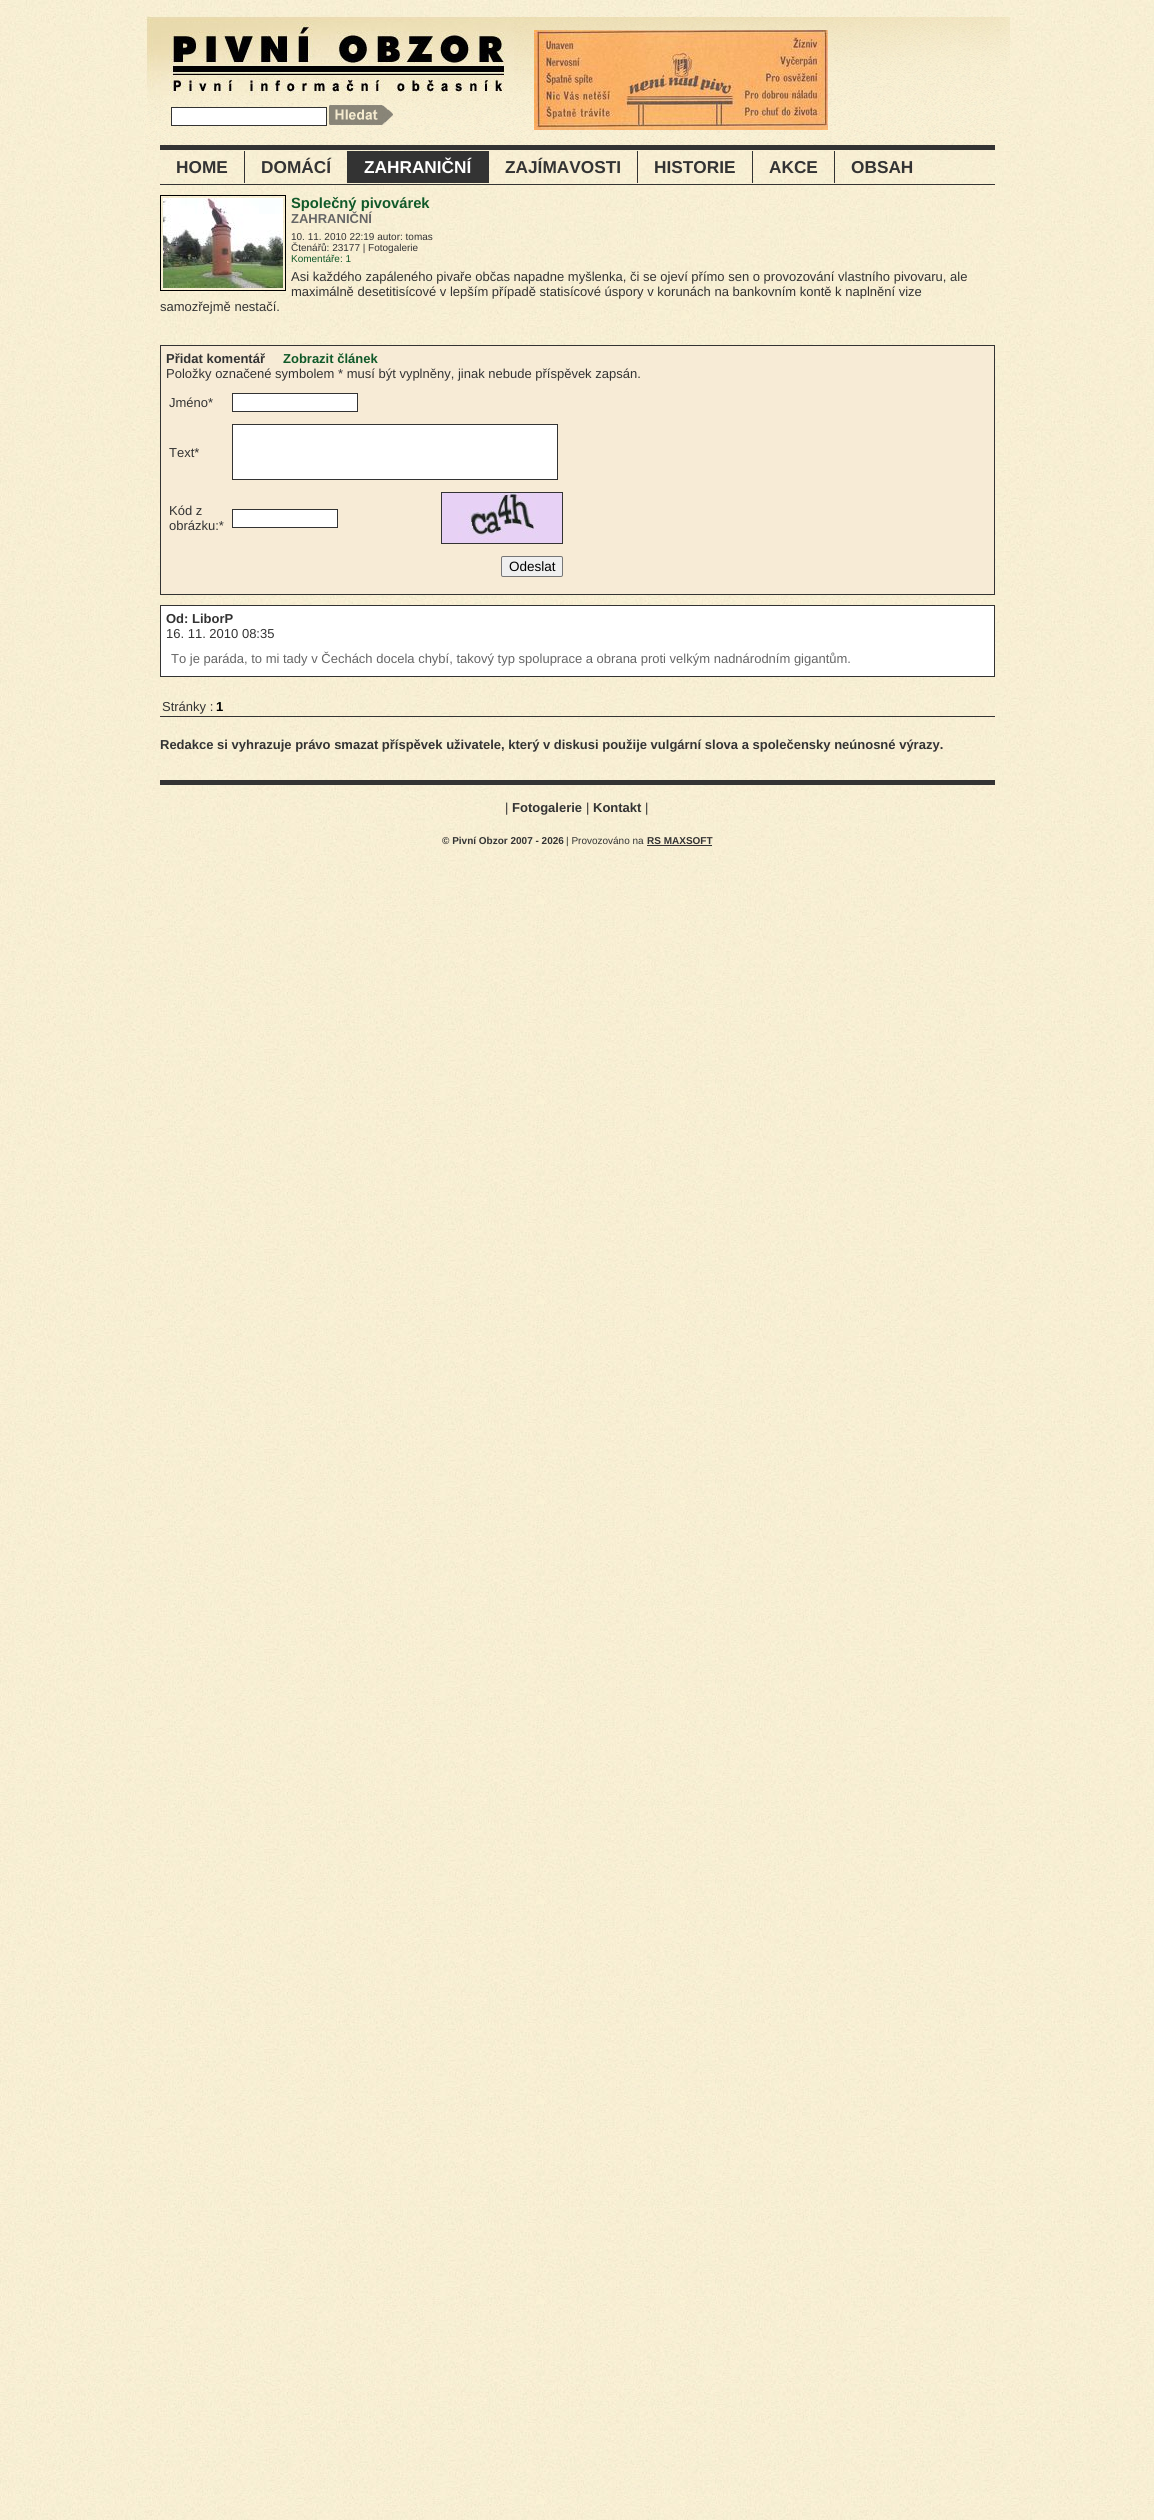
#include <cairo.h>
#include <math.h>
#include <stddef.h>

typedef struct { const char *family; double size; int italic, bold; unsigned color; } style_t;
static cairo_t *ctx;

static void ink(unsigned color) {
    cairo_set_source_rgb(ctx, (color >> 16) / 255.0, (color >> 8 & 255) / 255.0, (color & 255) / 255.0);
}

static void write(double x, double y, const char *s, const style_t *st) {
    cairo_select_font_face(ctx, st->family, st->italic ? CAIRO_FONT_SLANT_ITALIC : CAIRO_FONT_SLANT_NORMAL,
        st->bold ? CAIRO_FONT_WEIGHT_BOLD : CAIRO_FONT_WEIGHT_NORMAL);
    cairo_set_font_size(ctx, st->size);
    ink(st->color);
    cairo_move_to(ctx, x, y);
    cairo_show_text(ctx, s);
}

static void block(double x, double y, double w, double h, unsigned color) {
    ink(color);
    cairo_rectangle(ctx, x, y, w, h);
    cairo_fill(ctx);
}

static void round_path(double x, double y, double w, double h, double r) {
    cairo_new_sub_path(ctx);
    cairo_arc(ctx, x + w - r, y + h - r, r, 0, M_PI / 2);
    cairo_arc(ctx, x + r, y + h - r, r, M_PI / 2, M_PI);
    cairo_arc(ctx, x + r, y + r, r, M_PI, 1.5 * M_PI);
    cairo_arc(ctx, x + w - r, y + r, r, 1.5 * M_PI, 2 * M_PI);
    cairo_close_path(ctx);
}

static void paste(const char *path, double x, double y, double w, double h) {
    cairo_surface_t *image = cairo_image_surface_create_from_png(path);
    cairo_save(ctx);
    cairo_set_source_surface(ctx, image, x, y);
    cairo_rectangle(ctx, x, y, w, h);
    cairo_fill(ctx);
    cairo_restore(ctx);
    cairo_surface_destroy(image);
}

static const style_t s1 = {"Liberation Sans", 17.25, 0, 1, 0x333333};
static const style_t s2 = {"Liberation Sans", 17.25, 0, 1, 0xffffff};
static const style_t s3 = {"Liberation Sans", 14.75, 0, 1, 0x105929};
static const style_t s4 = {"Liberation Sans", 13, 0, 1, 0x666666};
static const style_t s5 = {"Liberation Sans", 10, 0, 0, 0x333333};
static const style_t s6 = {"Liberation Sans", 10, 0, 0, 0x105929};
static const style_t s7 = {"Liberation Sans", 13, 0, 0, 0x333333};
static const style_t s8 = {"Liberation Sans", 13, 0, 1, 0x333333};
static const style_t s9 = {"Liberation Sans", 13, 0, 1, 0x105929};
static const style_t s10 = {"Liberation Sans", 13.5, 0, 0, 0x000000};
static const style_t s11 = {"Liberation Sans", 13, 0, 0, 0x666666};
static const style_t s12 = {"Liberation Sans", 13, 0, 1, 0x000000};
static const style_t s13 = {"Liberation Sans", 10, 0, 1, 0x333333};

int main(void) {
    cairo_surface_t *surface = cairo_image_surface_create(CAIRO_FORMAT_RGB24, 1154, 2520);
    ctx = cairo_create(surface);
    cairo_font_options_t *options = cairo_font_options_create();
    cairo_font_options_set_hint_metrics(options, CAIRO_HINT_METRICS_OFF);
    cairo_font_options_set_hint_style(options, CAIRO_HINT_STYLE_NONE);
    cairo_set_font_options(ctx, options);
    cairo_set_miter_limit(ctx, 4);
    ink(0xffffff);
    cairo_paint(ctx);
    paste("pic1.png", 0, 0, 1154, 2520);
    paste("pic2.png", 145, 145, 865, 711);
    paste("pic3.png", 145, 15, 865, 130);
    ink(0xffffff);
    cairo_rectangle(ctx, 171.5, 107.5, 155, 18);
    cairo_fill_preserve(ctx);
    ink(0x333333);
    cairo_set_line_width(ctx, 1);
    cairo_stroke(ctx);
    paste("pic4.png", 329, 105, 64, 20);
    paste("pic5.png", 145, 15, 369, 83);
    block(160, 145, 835, 5, 0x333333);
    block(160, 184, 835, 1, 0x333333);
    paste("pic6.png", 534, 30, 294, 100);
    write(176, 173, "HOME", &s1);
    block(244, 151, 1, 32, 0x333333);
    write(261, 173, "DOMÁCÍ", &s1);
    block(347, 151, 142, 32, 0x333333);
    write(364, 173, "ZAHRANIČNÍ", &s2);
    write(505, 173, "ZAJÍMAVOSTI", &s1);
    block(637, 151, 1, 32, 0x333333);
    write(654, 173, "HISTORIE", &s1);
    block(752, 151, 1, 32, 0x333333);
    write(769, 173, "AKCE", &s1);
    block(834, 151, 1, 32, 0x333333);
    write(851, 173, "OBSAH", &s1);
    cairo_rectangle(ctx, 160.5, 195.5, 125, 95);
    ink(0x000000);
    cairo_stroke(ctx);
    paste("pic7.png", 163, 198, 120, 90);
    write(291, 208, "Společný pivovárek", &s3);
    write(291, 223, "ZAHRANIČNÍ", &s4);
    write(291, 240, "10. 11. 2010 22:19 autor: tomas", &s5);
    write(291, 251, "Čtenářů: 23177 | Fotogalerie", &s5);
    write(291, 262, "Komentáře: 1", &s6);
    write(291, 281, "Asi každého zapáleného pivaře občas napadne myšlenka, či se ojeví přímo sen o provozování vlastního pivovaru, ale", &s7);
    write(291, 296, "maximálně desetitisícové v lepším případě statisícové úspory v korunách na bankovním kontě k naplnění vize", &s7);
    write(160, 311, "samozřejmě nestačí.", &s7);
    ink(0xf7ebd6);
    cairo_rectangle(ctx, 160.5, 345.5, 834, 249);
    cairo_fill_preserve(ctx);
    ink(0x333333);
    cairo_stroke(ctx);
    write(166, 363, "Přidat komentář", &s8);
    write(283, 363, "Zobrazit článek", &s9);
    write(166, 378, "Položky označené symbolem * musí být vyplněny, jinak nebude příspěvek zapsán.", &s7);
    write(169, 407, "Jméno*", &s7);
    ink(0xffffff);
    cairo_rectangle(ctx, 232.5, 393.5, 125, 18);
    cairo_fill_preserve(ctx);
    ink(0x333333);
    cairo_stroke(ctx);
    write(169, 457, "Text*", &s7);
    ink(0xffffff);
    cairo_rectangle(ctx, 232.5, 424.5, 325, 55);
    cairo_fill_preserve(ctx);
    ink(0x333333);
    cairo_stroke(ctx);
    write(169, 515, "Kód z", &s7);
    write(169, 530, "obrázku:*", &s7);
    ink(0xffffff);
    cairo_rectangle(ctx, 232.5, 509.5, 105, 18);
    cairo_fill_preserve(ctx);
    ink(0x333333);
    cairo_stroke(ctx);
    cairo_rectangle(ctx, 441.5, 492.5, 121, 51);
    cairo_stroke(ctx);
    paste("pic8.png", 442, 493, 120, 50);
    ink(0xefefef);
    round_path(501.5, 556.5, 61, 20, 1.5);
    cairo_fill_preserve(ctx);
    ink(0x767676);
    cairo_stroke(ctx);
    write(509, 571, "Odeslat", &s10);
    block(161, 606, 833, 70, 0xffffff);
    block(160, 605, 835, 1, 0x333333);
    block(994, 605, 1, 72, 0x333333);
    block(160, 605, 1, 41, 0x333333);
    write(166, 623, "Od: LiborP", &s8);
    write(166, 638, "16. 11. 2010 08:35", &s7);
    block(160, 676, 835, 1, 0x333333);
    block(160, 646, 1, 31, 0x333333);
    write(171, 663, "To je paráda, to mi tady v Čechách docela chybí, takový typ spoluprace a obrana proti velkým nadnárodním gigantům.", &s11);
    block(160, 716, 835, 1, 0x333333);
    write(162, 711, "Stránky :", &s7);
    write(216, 711, "1", &s12);
    write(160, 749, "Redakce si vyhrazuje právo smazat příspěvek uživatele, který v diskusi použije vulgární slova a společensky neúnosné výrazy.", &s8);
    block(160, 780, 835, 5, 0x333333);
    write(505, 812, "|", &s7);
    write(512, 812, "Fotogalerie", &s8);
    write(586, 812, "|", &s7);
    write(593, 812, "Kontakt", &s8);
    write(645, 812, "|", &s7);
    write(442, 844, "© Pivní Obzor 2007 - 2026", &s13);
    write(566, 844, "| Provozováno na", &s5);
    write(647, 844, "RS MAXSOFT", &s13);
    block(647, 845, 65, 1, 0x333333);
    cairo_surface_write_to_png(surface, "screenshot.png");
    cairo_font_options_destroy(options);
    cairo_destroy(ctx);
    cairo_surface_destroy(surface);
    return 0;
}
